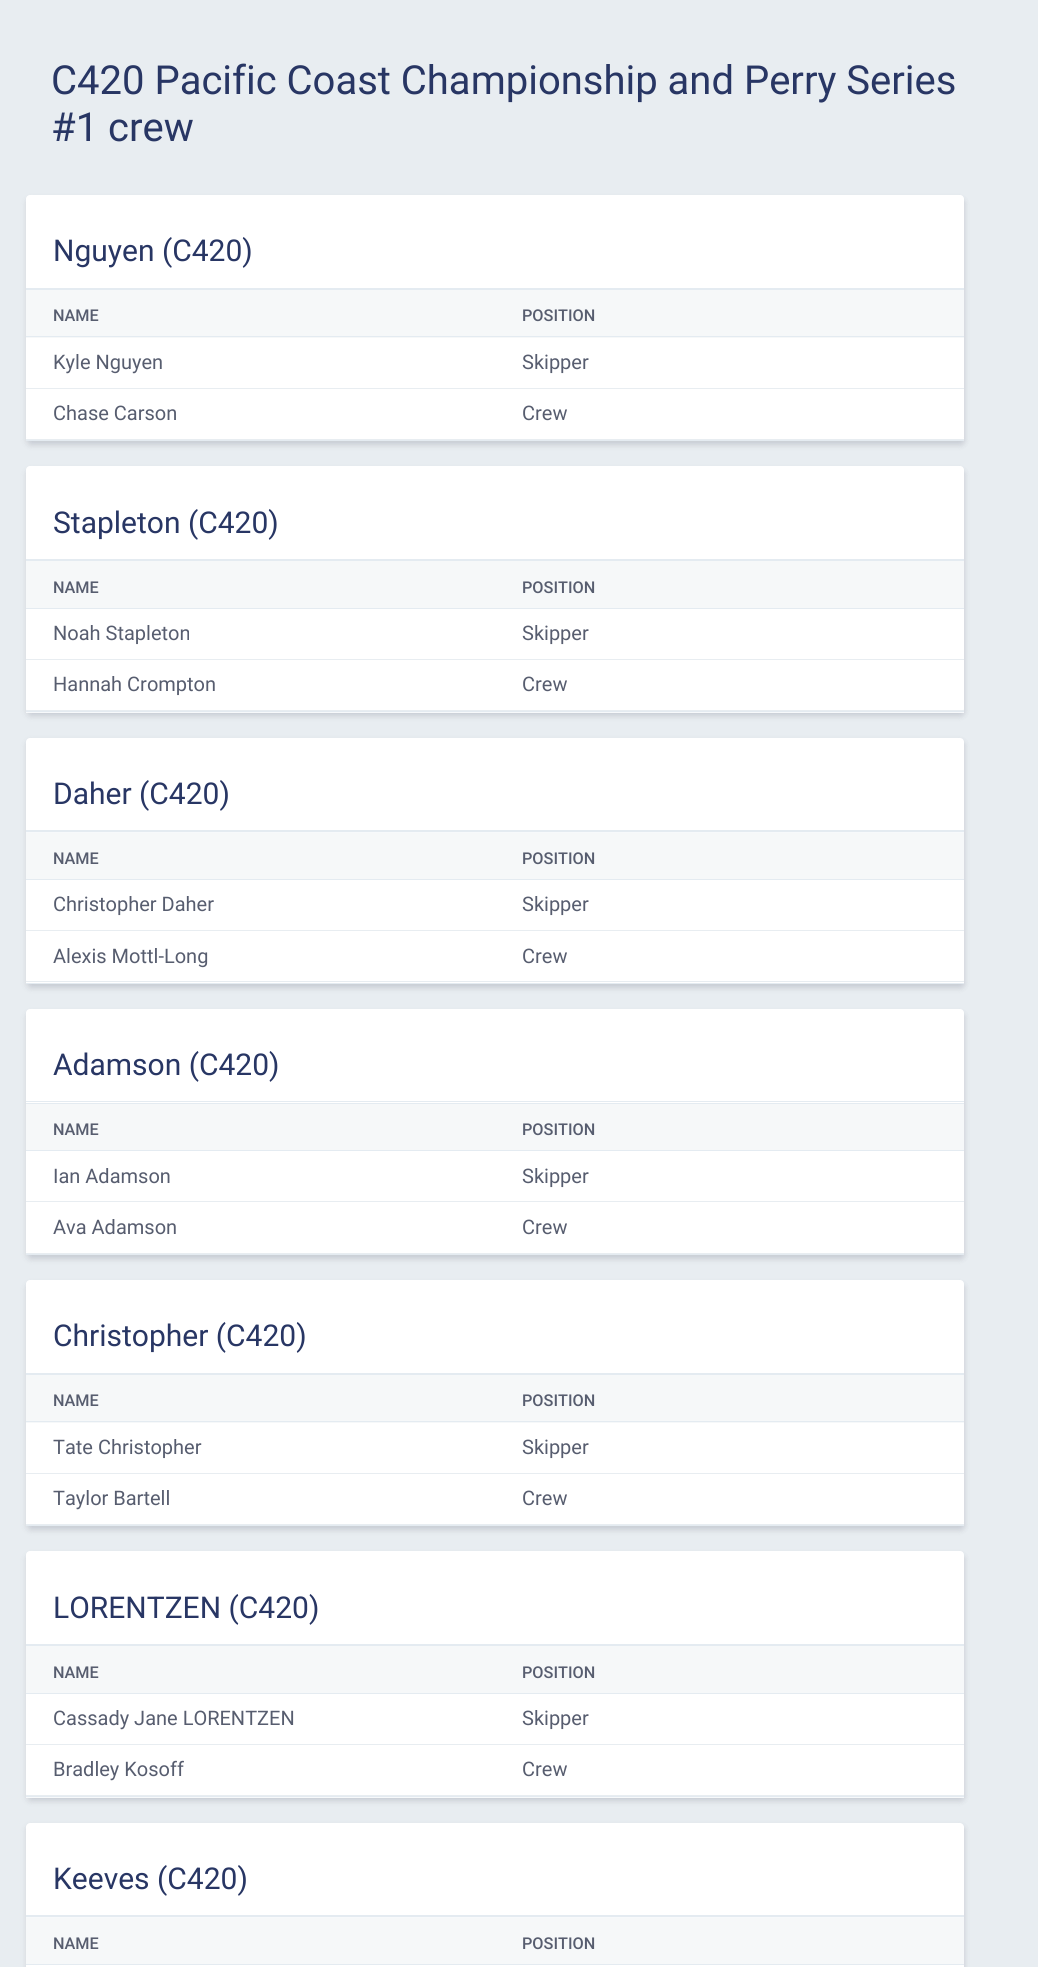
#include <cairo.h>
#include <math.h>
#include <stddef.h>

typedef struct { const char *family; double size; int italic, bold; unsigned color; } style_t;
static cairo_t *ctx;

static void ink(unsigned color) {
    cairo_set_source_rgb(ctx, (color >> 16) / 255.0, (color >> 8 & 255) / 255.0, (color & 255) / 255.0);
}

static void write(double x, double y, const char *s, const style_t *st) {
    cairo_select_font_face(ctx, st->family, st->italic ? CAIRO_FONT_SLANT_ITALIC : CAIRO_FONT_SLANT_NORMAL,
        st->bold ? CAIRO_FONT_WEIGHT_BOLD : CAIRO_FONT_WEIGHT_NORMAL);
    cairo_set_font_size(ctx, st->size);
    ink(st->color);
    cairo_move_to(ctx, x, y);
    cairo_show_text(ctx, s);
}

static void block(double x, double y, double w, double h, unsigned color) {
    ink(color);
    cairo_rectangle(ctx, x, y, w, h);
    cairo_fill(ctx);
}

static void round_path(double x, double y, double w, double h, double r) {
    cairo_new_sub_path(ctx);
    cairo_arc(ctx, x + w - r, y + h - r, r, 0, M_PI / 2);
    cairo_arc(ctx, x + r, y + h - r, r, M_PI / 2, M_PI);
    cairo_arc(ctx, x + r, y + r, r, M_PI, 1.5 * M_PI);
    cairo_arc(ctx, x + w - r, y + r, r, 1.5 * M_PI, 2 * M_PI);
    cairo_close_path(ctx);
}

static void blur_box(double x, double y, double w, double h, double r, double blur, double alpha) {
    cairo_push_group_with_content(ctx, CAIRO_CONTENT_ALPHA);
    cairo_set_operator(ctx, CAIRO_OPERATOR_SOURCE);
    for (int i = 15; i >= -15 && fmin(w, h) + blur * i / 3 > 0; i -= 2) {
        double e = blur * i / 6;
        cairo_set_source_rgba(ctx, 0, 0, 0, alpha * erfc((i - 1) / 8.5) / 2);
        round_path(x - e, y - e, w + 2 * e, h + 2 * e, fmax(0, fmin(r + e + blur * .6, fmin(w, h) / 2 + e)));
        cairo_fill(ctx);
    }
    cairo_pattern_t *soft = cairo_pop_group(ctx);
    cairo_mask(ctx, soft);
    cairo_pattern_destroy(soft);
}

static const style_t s1 = {"Roboto", 40, 0, 0, 0x283664};
static const style_t s2 = {"Roboto", 30, 0, 0, 0x283664};
static const style_t s3 = {"Roboto Medium", 16.25, 0, 0, 0x575d6f};
static const style_t s4 = {"Roboto", 20, 0, 0, 0x575d6f};

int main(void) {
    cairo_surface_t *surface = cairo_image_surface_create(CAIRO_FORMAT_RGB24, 1038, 1967);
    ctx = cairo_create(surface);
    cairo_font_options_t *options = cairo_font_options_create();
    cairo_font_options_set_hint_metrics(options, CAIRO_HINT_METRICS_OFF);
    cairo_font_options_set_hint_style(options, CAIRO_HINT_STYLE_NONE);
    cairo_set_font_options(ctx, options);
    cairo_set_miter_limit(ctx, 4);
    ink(0xe8edf1);
    cairo_paint(ctx);
    write(51, 94, "C420 Pacific Coast Championship and Perry Series", &s1);
    write(51, 141, "#1 crew", &s1);
    ink(0x000000);
    blur_box(26, 199, 938, 246, 4, 4, 0.07);
    ink(0x32325d);
    blur_box(28, 199, 937, 246, 4, 2.5, 0.1);
    ink(0xffffff);
    round_path(26, 195, 938, 246, 4);
    cairo_fill(ctx);
    write(53, 261, "Nguyen (C420)", &s2);
    block(26, 288, 938, 2, 0xe4ebf1);
    block(26, 440, 938, 1, 0xe4ebf1);
    block(26, 438, 938, 1, 0xffffff);
    block(26, 290, 938, 48, 0xf6f8f9);
    block(26, 336, 938, 1, 0xe4ebf1);
    write(53, 321, "NAME", &s3);
    write(522, 321, "POSITION", &s3);
    block(26, 388, 938, 1, 0xe8edf1);
    write(53, 369, "Kyle Nguyen", &s4);
    write(522, 369, "Skipper", &s4);
    block(26, 439, 938, 1, 0xe8edf1);
    write(53, 420, "Chase Carson", &s4);
    write(522, 420, "Crew", &s4);
    ink(0x000000);
    blur_box(26, 470, 938, 246, 4, 4, 0.07);
    ink(0x32325d);
    blur_box(28, 470, 937, 246, 4, 2.5, 0.1);
    ink(0xffffff);
    round_path(26, 466, 938, 247, 4);
    cairo_fill(ctx);
    write(53, 533, "Stapleton (C420)", &s2);
    block(26, 559, 938, 2, 0xe4ebf1);
    block(26, 712, 938, 1, 0xf7f9fb);
    block(26, 711, 938, 1, 0xe4ebf1);
    block(26, 561, 938, 47, 0xf6f8f9);
    block(26, 608, 938, 1, 0xe4ebf1);
    write(53, 593, "NAME", &s3);
    write(522, 593, "POSITION", &s3);
    block(26, 659, 938, 1, 0xe8edf1);
    write(53, 640, "Noah Stapleton", &s4);
    write(522, 640, "Skipper", &s4);
    block(26, 710, 938, 1, 0xe8edf1);
    write(53, 691, "Hannah Crompton", &s4);
    write(522, 691, "Crew", &s4);
    ink(0x000000);
    blur_box(26, 741, 938, 247, 4, 4, 0.07);
    ink(0x32325d);
    blur_box(28, 741, 937, 247, 4, 2.5, 0.1);
    ink(0xffffff);
    round_path(26, 738, 938, 246, 4);
    cairo_fill(ctx);
    write(53, 804, "Daher (C420)", &s2);
    block(26, 830, 938, 2, 0xe4ebf1);
    block(26, 832, 938, 1, 0xf7f9fb);
    block(26, 983, 938, 1, 0xe4ebf1);
    block(26, 981, 938, 2, 0xffffff);
    block(26, 833, 938, 46, 0xf6f8f9);
    block(26, 879, 938, 1, 0xe4ebf1);
    write(53, 864, "NAME", &s3);
    write(522, 864, "POSITION", &s3);
    block(26, 930, 938, 1, 0xe8edf1);
    write(53, 911, "Christopher Daher", &s4);
    write(522, 911, "Skipper", &s4);
    block(26, 981, 938, 1, 0xe8edf1);
    write(53, 963, "Alexis Mottl-Long", &s4);
    write(522, 963, "Crew", &s4);
    ink(0x000000);
    blur_box(26, 1013, 938, 246, 4, 4, 0.07);
    ink(0x32325d);
    blur_box(28, 1013, 937, 246, 4, 2.5, 0.1);
    ink(0xffffff);
    round_path(26, 1009, 938, 246, 4);
    cairo_fill(ctx);
    write(53, 1075, "Adamson (C420)", &s2);
    block(26, 1101, 938, 1, 0xe4ebf1);
    block(26, 1103, 938, 1, 0xe4ebf1);
    block(26, 1254, 938, 1, 0xe4ebf1);
    block(26, 1252, 938, 1, 0xffffff);
    block(26, 1104, 938, 46, 0xf6f8f9);
    block(26, 1150, 938, 1, 0xe4ebf1);
    write(53, 1135, "NAME", &s3);
    write(522, 1135, "POSITION", &s3);
    block(26, 1201, 938, 1, 0xe8edf1);
    write(53, 1183, "Ian Adamson", &s4);
    write(522, 1183, "Skipper", &s4);
    block(26, 1253, 938, 1, 0xe8edf1);
    write(53, 1234, "Ava Adamson", &s4);
    write(522, 1234, "Crew", &s4);
    ink(0x000000);
    blur_box(26, 1284, 938, 246, 4, 4, 0.07);
    ink(0x32325d);
    blur_box(28, 1284, 937, 246, 4, 2.5, 0.1);
    ink(0xffffff);
    round_path(26, 1280, 938, 246, 4);
    cairo_fill(ctx);
    write(53, 1346, "Christopher (C420)", &s2);
    block(26, 1373, 938, 2, 0xe4ebf1);
    block(26, 1525, 938, 1, 0xe4ebf1);
    block(26, 1523, 938, 1, 0xffffff);
    block(26, 1375, 938, 48, 0xf6f8f9);
    block(26, 1421, 938, 1, 0xe4ebf1);
    write(53, 1406, "NAME", &s3);
    write(522, 1406, "POSITION", &s3);
    block(26, 1473, 938, 1, 0xe8edf1);
    write(53, 1454, "Tate Christopher", &s4);
    write(522, 1454, "Skipper", &s4);
    block(26, 1524, 938, 1, 0xe8edf1);
    write(53, 1505, "Taylor Bartell", &s4);
    write(522, 1505, "Crew", &s4);
    ink(0x000000);
    blur_box(26, 1555, 938, 246, 4, 4, 0.07);
    ink(0x32325d);
    blur_box(28, 1555, 937, 246, 4, 2.5, 0.1);
    ink(0xffffff);
    round_path(26, 1551, 938, 247, 4);
    cairo_fill(ctx);
    write(53, 1618, "LORENTZEN (C420)", &s2);
    block(26, 1644, 938, 2, 0xe4ebf1);
    block(26, 1797, 938, 1, 0xf7f9fb);
    block(26, 1796, 938, 1, 0xe4ebf1);
    block(26, 1646, 938, 47, 0xf6f8f9);
    block(26, 1693, 938, 1, 0xe4ebf1);
    write(53, 1678, "NAME", &s3);
    write(522, 1678, "POSITION", &s3);
    block(26, 1744, 938, 1, 0xe8edf1);
    write(53, 1725, "Cassady Jane LORENTZEN", &s4);
    write(522, 1725, "Skipper", &s4);
    block(26, 1795, 938, 1, 0xe8edf1);
    write(53, 1776, "Bradley Kosoff", &s4);
    write(522, 1776, "Crew", &s4);
    ink(0x000000);
    blur_box(26, 1826, 938, 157, 4, 4, 0.07);
    ink(0x32325d);
    blur_box(28, 1826, 937, 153, 4, 2.5, 0.1);
    ink(0xffffff);
    cairo_new_path(ctx);
    cairo_move_to(ctx, 30, 1823);
    cairo_line_to(ctx, 960, 1823);
    cairo_curve_to(ctx, 962, 1823, 964, 1825, 964, 1827);
    cairo_line_to(ctx, 964, 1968);
    cairo_line_to(ctx, 26, 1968);
    cairo_line_to(ctx, 26, 1827);
    cairo_curve_to(ctx, 26, 1825, 28, 1823, 30, 1823);
    cairo_close_path(ctx);
    cairo_fill(ctx);
    write(53, 1889, "Keeves (C420)", &s2);
    block(26, 1915, 938, 2, 0xe4ebf1);
    block(26, 1917, 938, 1, 0xf7f9fb);
    block(26, 1918, 938, 46, 0xf6f8f9);
    block(26, 1964, 938, 1, 0xe4ebf1);
    write(53, 1949, "NAME", &s3);
    write(522, 1949, "POSITION", &s3);
    cairo_surface_write_to_png(surface, "screenshot.png");
    cairo_font_options_destroy(options);
    cairo_destroy(ctx);
    cairo_surface_destroy(surface);
    return 0;
}
